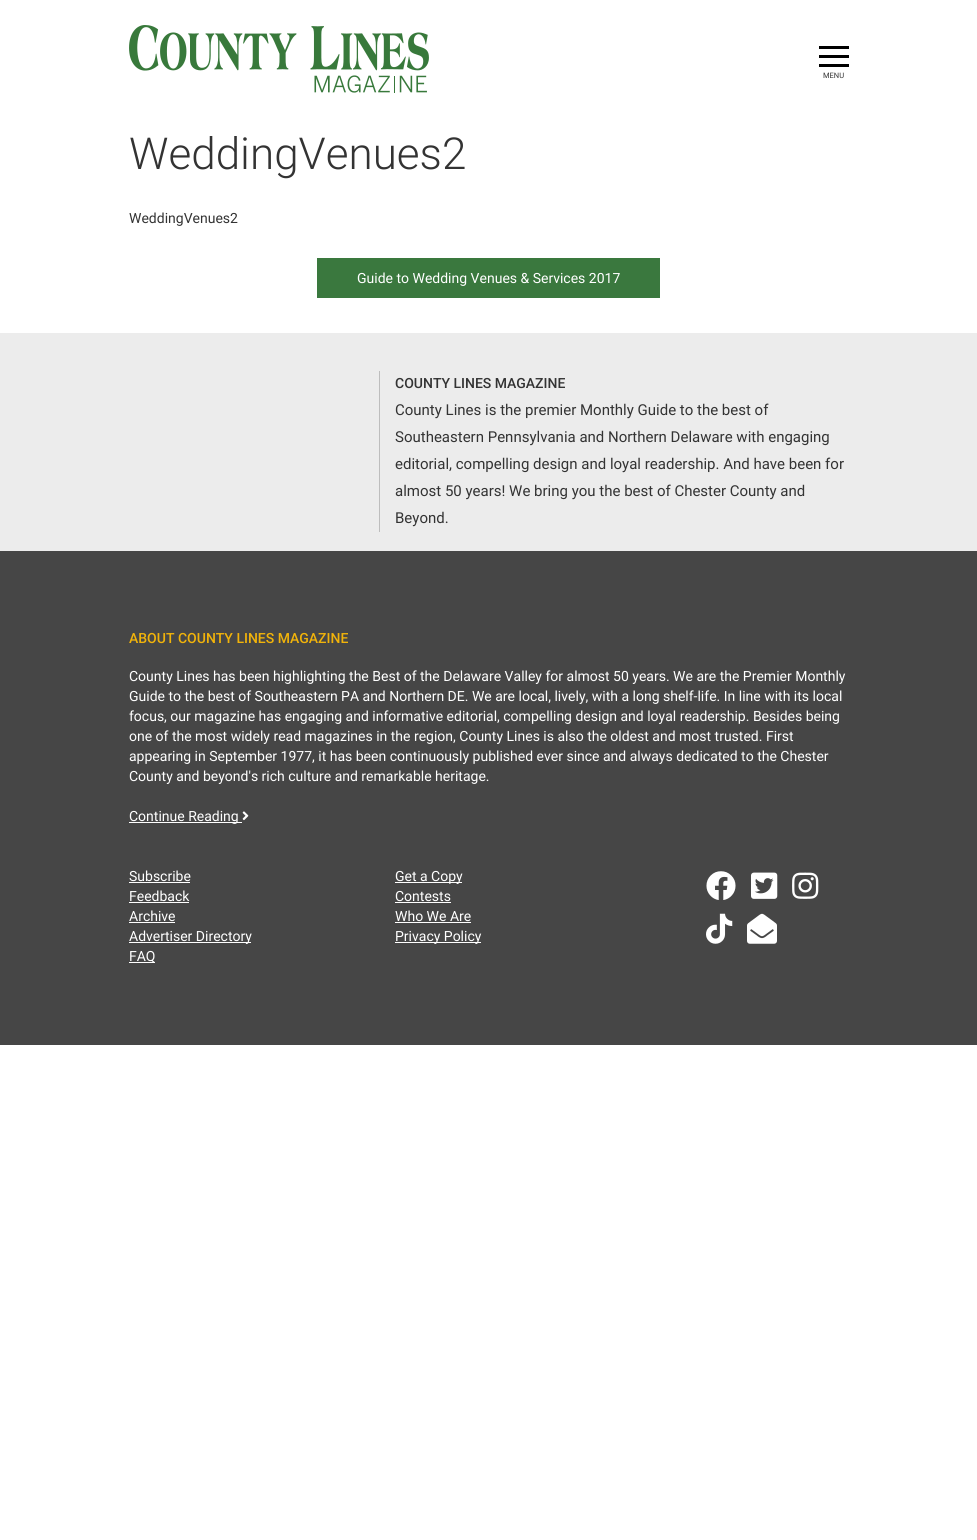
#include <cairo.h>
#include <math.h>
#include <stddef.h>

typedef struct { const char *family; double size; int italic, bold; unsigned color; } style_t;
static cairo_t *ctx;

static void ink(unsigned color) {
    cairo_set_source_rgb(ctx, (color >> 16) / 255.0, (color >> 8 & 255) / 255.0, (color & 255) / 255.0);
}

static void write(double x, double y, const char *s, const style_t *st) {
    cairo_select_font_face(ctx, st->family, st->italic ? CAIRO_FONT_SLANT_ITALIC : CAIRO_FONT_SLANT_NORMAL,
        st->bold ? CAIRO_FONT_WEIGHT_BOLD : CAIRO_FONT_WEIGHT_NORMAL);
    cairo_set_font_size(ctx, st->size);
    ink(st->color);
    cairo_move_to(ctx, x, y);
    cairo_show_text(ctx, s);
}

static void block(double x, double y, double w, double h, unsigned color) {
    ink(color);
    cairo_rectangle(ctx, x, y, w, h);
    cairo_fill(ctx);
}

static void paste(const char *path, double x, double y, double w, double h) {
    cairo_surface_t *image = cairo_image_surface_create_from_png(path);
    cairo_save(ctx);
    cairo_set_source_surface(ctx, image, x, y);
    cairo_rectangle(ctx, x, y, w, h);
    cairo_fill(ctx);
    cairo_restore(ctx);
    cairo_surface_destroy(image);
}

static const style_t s1 = {"Roboto", 7.5, 0, 0, 0x333333};
static const style_t s2 = {"Roboto Light", 44, 0, 0, 0x333333};
static const style_t s3 = {"Roboto", 14, 0, 0, 0x333333};
static const style_t s4 = {"Roboto", 14, 0, 0, 0xffffff};
static const style_t s5 = {"Roboto Medium", 14, 0, 0, 0x333333};
static const style_t s6 = {"Roboto", 15, 0, 0, 0x333333};
static const style_t s7 = {"Roboto Medium", 14, 0, 0, 0xf1b30a};

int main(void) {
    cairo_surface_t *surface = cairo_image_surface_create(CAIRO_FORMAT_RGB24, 977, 1540);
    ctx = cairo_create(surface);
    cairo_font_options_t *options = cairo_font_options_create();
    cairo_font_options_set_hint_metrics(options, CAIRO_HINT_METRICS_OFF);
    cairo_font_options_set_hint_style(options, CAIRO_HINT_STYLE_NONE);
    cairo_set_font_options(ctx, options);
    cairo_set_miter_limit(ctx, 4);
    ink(0xffffff);
    cairo_paint(ctx);
    paste("pic1.png", 129, 25, 300, 68);
    block(819, 64, 30, 3, 0x000000);
    block(819, 55, 30, 3, 0x000000);
    block(819, 46, 30, 3, 0x000000);
    write(823, 78, "MENU", &s1);
    write(129, 169, "WeddingVenues2", &s2);
    write(129, 223, "WeddingVenues2", &s3);
    block(317, 258, 343, 40, 0x3a783e);
    write(357, 283, "Guide to Wedding Venues & Services 2017", &s4);
    block(0, 333, 977, 218, 0xececec);
    block(379, 371, 1, 161, 0xbdbdbd);
    write(395, 388, "COUNTY LINES MAGAZINE", &s5);
    write(395, 415, "County Lines is the premier Monthly Guide to the best of", &s6);
    write(395, 442, "Southeastern Pennsylvania and Northern Delaware with engaging", &s6);
    write(395, 469, "editorial, compelling design and loyal readership. And have been for", &s6);
    write(395, 496, "almost 50 years! We bring you the best of Chester County and", &s6);
    write(395, 523, "Beyond.", &s6);
    block(0, 551, 977, 494, 0x464646);
    write(129, 643, "ABOUT COUNTY LINES MAGAZINE", &s7);
    write(129, 681, "County Lines has been highlighting the Best of the Delaware Valley for almost 50 years. We are the Premier Monthly", &s4);
    write(129, 701, "Guide to the best of Southeastern PA and Northern DE. We are local, lively, with a long shelf-life. In line with its local", &s4);
    write(129, 721, "focus, our magazine has engaging and informative editorial, compelling design and loyal readership. Besides being", &s4);
    write(129, 741, "one of the most widely read magazines in the region, County Lines is also the oldest and most trusted. First", &s4);
    write(129, 761, "appearing in September 1977, it has been continuously published ever since and always dedicated to the Chester", &s4);
    write(129, 781, "County and beyond's rich culture and remarkable heritage.", &s4);
    block(129, 822, 113, 1, 0xffffff);
    write(129, 821, "Continue Reading", &s4);
    paste("pic2.png", 242, 811, 7, 10);
    write(129, 881, "Subscribe", &s4);
    block(129, 882, 61, 1, 0xffffff);
    block(395, 882, 67, 1, 0xffffff);
    write(395, 881, "Get a Copy", &s4);
    write(129, 901, "Feedback", &s4);
    block(129, 902, 60, 1, 0xffffff);
    write(395, 901, "Contests", &s4);
    block(395, 902, 56, 1, 0xffffff);
    write(129, 921, "Archive", &s4);
    block(129, 922, 46, 1, 0xffffff);
    write(395, 921, "Who We Are", &s4);
    block(395, 922, 76, 1, 0xffffff);
    block(129, 942, 122, 1, 0xffffff);
    write(129, 941, "Advertiser Directory", &s4);
    block(395, 942, 86, 1, 0xffffff);
    write(395, 941, "Privacy Policy", &s4);
    block(129, 962, 26, 1, 0xffffff);
    write(129, 961, "FAQ", &s4);
    paste("pic3.png", 706, 871, 30, 29);
    paste("pic4.png", 751, 872, 27, 27);
    paste("pic5.png", 792, 872, 27, 27);
    paste("pic6.png", 706, 913, 27, 31);
    paste("pic7.png", 747, 913, 30, 31);
    cairo_surface_write_to_png(surface, "screenshot.png");
    cairo_font_options_destroy(options);
    cairo_destroy(ctx);
    cairo_surface_destroy(surface);
    return 0;
}
